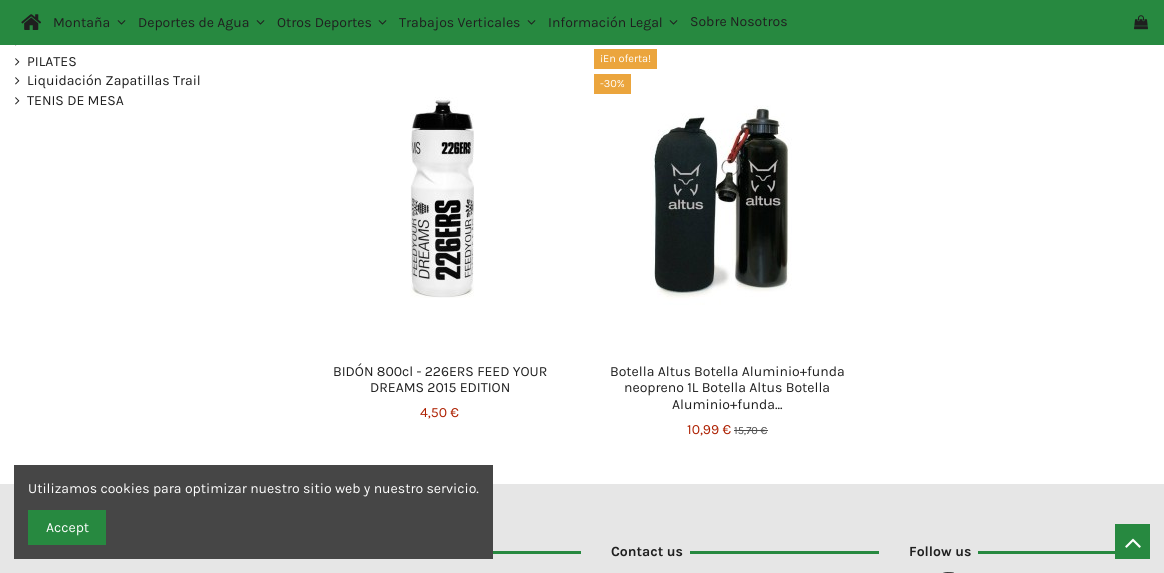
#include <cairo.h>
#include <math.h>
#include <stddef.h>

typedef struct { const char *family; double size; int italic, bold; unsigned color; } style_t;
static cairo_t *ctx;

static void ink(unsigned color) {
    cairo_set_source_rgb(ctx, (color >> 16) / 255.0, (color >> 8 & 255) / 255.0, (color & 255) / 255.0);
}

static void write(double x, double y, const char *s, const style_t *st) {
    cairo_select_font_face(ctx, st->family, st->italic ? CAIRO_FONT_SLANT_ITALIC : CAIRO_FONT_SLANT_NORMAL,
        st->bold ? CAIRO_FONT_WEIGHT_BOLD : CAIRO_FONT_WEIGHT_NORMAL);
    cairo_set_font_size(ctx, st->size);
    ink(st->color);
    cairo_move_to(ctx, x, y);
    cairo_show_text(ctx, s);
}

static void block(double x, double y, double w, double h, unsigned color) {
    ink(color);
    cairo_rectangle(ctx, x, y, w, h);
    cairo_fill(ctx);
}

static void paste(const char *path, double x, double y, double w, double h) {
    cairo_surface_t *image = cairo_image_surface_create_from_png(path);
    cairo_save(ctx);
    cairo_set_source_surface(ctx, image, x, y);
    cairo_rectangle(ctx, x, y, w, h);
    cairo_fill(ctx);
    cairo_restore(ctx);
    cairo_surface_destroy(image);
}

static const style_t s1 = {"Karla", 14, 0, 0, 0x1f1f1f};
static const style_t s2 = {"Karla", 14, 0, 0, 0xad1f00};
static const style_t s3 = {"Karla", 11, 0, 0, 0xffffff};
static const style_t s4 = {"Karla", 11, 0, 0, 0x4c4c4c};
static const style_t s5 = {"Karla", 14, 0, 1, 0x1f1f1f};
static const style_t s6 = {"Karla", 14, 0, 0, 0xffffff};

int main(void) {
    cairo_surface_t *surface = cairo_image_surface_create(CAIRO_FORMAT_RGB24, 1164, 573);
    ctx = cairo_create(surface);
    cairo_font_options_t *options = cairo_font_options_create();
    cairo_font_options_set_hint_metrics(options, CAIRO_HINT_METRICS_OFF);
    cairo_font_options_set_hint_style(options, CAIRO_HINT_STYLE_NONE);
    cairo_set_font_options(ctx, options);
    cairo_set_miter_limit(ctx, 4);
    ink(0xffffff);
    cairo_paint(ctx);
    block(0, 0, 1164, 45, 0x278940);
    paste("pic1.png", 21, 14, 20, 16);
    write(53, 27, "Montaña", &s1);
    paste("pic2.png", 117, 20, 9, 5);
    write(138, 27, "Deportes de Agua", &s1);
    paste("pic2.png", 256, 20, 9, 5);
    write(277, 27, "Otros Deportes", &s1);
    paste("pic2.png", 378, 20, 9, 5);
    write(399, 27, "Trabajos Verticales", &s1);
    paste("pic2.png", 527, 20, 9, 5);
    write(548, 27, "Información Legal", &s1);
    paste("pic2.png", 669, 20, 9, 5);
    write(690, 26, "Sobre Nosotros", &s1);
    paste("pic3.png", 1134, 15, 14, 15);
    paste("pic4.png", 15, 45, 2, 1);
    paste("pic5.png", 15, 58, 5, 8);
    write(27, 66, "PILATES", &s1);
    paste("pic5.png", 15, 77, 5, 8);
    write(27, 85, "Liquidación Zapatillas Trail", &s1);
    paste("pic5.png", 15, 97, 5, 8);
    write(27, 105, "TENIS DE MESA", &s1);
    paste("pic6.png", 410, 97, 64, 201);
    write(333, 376, "BIDÓN 800cl - 226ERS FEED YOUR", &s1);
    write(370, 392, "DREAMS 2015 EDITION", &s1);
    write(420, 417, "4,50 €", &s2);
    block(594, 49, 63, 20, 0xeba53d);
    write(600, 62, "¡En oferta!", &s3);
    block(594, 74, 37, 20, 0xeba53d);
    write(600, 87, "-30%", &s3);
    paste("pic7.png", 650, 105, 142, 200);
    write(610, 376, "Botella Altus Botella Aluminio+funda", &s1);
    write(624, 392, "neopreno 1L Botella Altus Botella", &s1);
    write(672, 409, "Aluminio+funda...", &s1);
    write(687, 434, "10,99 €", &s2);
    write(734, 434, "15,70 €", &s4);
    block(734, 430, 34, 1, 0x4c4c4c);
    block(0, 484, 1164, 89, 0xe6e6e6);
    block(493, 551, 88, 3, 0x278940);
    write(611, 556, "Contact us", &s5);
    block(690, 551, 189, 3, 0x278940);
    write(909, 556, "Follow us", &s5);
    block(978, 551, 137, 3, 0x278940);
    paste("pic8.png", 943, 572, 11, 1);
    block(14, 465, 479, 94, 0x464646);
    write(28, 493, "Utilizamos cookies para optimizar nuestro sitio web y nuestro servicio.", &s6);
    block(28, 510, 78, 35, 0x278940);
    write(46, 532, "Accept", &s6);
    block(1115, 524, 35, 35, 0x278940);
    paste("pic9.png", 1125, 538, 16, 10);
    cairo_surface_write_to_png(surface, "screenshot.png");
    cairo_font_options_destroy(options);
    cairo_destroy(ctx);
    cairo_surface_destroy(surface);
    return 0;
}
